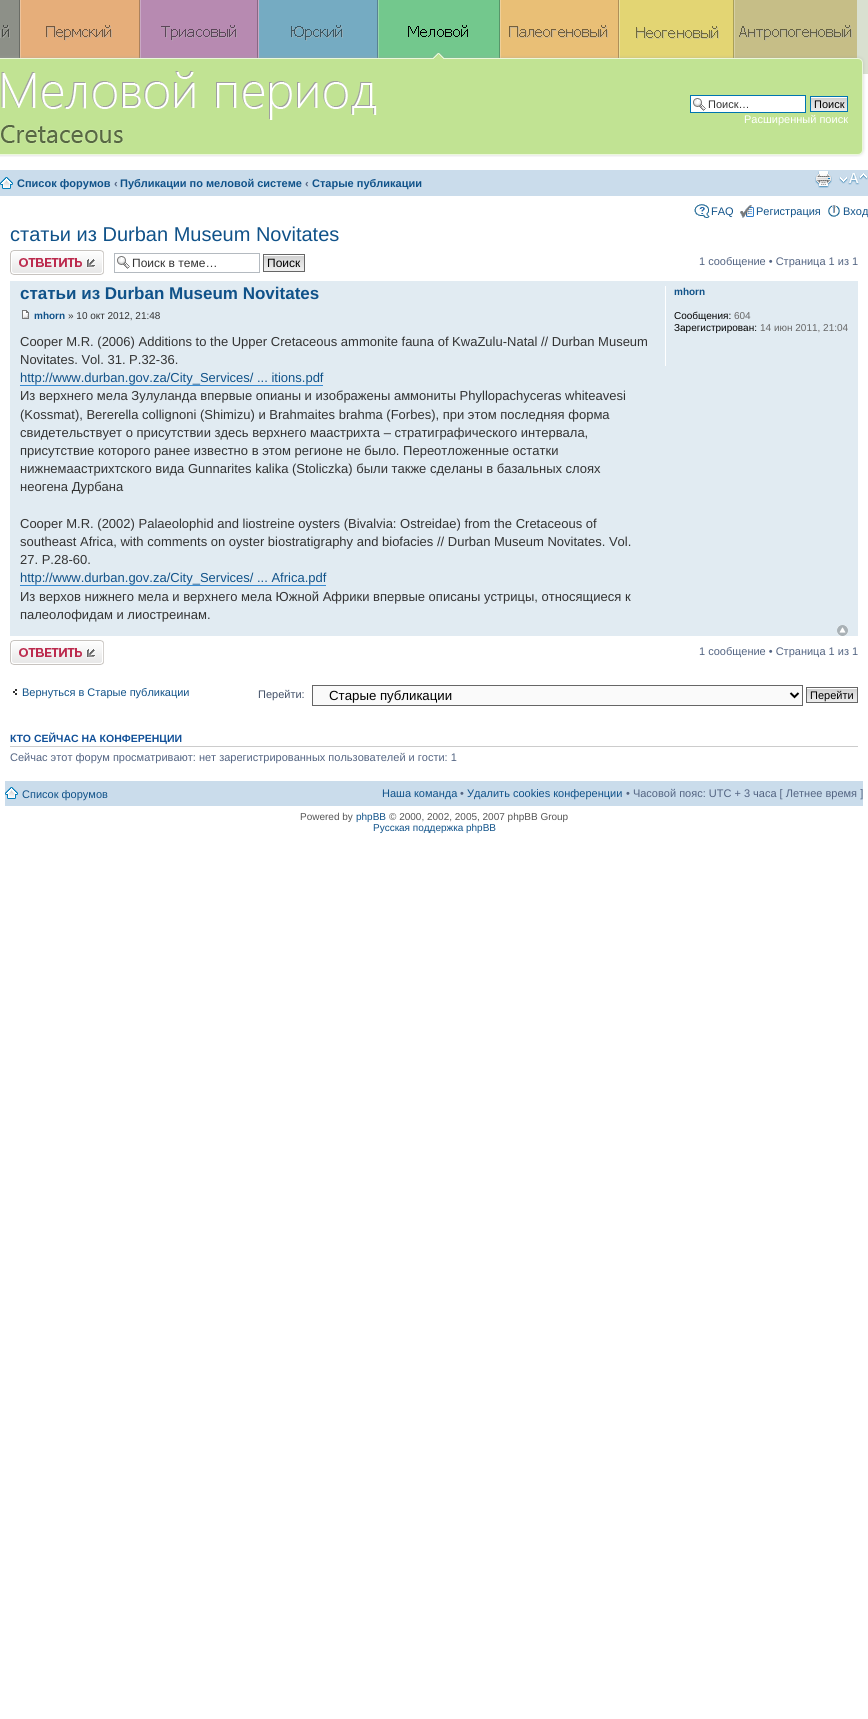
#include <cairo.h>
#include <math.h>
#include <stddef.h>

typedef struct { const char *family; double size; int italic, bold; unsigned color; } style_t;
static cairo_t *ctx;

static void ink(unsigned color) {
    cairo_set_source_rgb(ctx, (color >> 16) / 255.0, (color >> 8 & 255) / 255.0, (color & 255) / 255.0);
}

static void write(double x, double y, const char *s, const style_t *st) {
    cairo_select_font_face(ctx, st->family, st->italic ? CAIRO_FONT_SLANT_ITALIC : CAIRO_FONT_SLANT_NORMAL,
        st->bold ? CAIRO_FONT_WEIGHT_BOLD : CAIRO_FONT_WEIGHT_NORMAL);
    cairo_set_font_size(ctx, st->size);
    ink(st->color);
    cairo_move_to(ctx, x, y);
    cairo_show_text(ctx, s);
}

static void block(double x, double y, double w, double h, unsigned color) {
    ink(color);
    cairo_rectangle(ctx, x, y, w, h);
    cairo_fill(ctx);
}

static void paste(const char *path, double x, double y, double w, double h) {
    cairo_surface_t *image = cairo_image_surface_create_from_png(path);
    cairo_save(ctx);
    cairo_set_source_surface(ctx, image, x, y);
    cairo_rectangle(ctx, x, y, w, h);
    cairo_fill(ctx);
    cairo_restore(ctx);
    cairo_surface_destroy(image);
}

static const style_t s1 = {"Liberation Sans", 11, 0, 0, 0x333333};
static const style_t s2 = {"Liberation Sans", 11, 0, 0, 0x000000};
static const style_t s3 = {"Liberation Sans", 11, 0, 0, 0xffffff};
static const style_t s4 = {"Liberation Sans", 11, 0, 1, 0x105289};
static const style_t s5 = {"Liberation Sans", 11, 0, 1, 0x536482};
static const style_t s6 = {"Liberation Sans", 11, 0, 0, 0x105289};
static const style_t s7 = {"Liberation Sans", 20, 0, 0, 0x105289};
static const style_t s8 = {"Liberation Sans", 12, 0, 0, 0x333333};
static const style_t s9 = {"Liberation Sans", 12, 0, 0, 0x000000};
static const style_t s10 = {"Liberation Sans", 11, 0, 0, 0x536482};
static const style_t s11 = {"Liberation Sans", 17, 0, 1, 0x105289};
static const style_t s12 = {"Liberation Sans", 10, 0, 1, 0x105289};
static const style_t s13 = {"Liberation Sans", 10, 0, 0, 0x333333};
static const style_t s14 = {"Liberation Sans", 13, 0, 0, 0x333333};
static const style_t s15 = {"Liberation Sans", 13, 0, 0, 0x105289};
static const style_t s16 = {"Liberation Sans", 10, 0, 0, 0x000000};
static const style_t s17 = {"Liberation Sans", 10, 0, 0, 0x666666};
static const style_t s18 = {"Liberation Sans", 11, 0, 0, 0x425067};
static const style_t s19 = {"Liberation Sans", 13.25, 0, 0, 0x000000};
static const style_t s20 = {"Liberation Sans", 10.5, 0, 1, 0x115098};
static const style_t s21 = {"Liberation Sans", 10, 0, 0, 0x555555};
static const style_t s22 = {"Liberation Sans", 10, 0, 0, 0x105289};

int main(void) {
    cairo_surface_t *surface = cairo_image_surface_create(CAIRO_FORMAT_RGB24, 868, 1719);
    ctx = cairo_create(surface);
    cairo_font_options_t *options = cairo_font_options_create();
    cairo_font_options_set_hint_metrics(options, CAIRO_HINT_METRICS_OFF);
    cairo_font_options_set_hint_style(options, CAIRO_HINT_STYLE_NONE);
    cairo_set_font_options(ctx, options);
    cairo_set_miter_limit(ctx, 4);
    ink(0xffffff);
    cairo_paint(ctx);
    paste("pic1.png", 0, 0, 868, 157);
    block(691, 96, 114, 16, 0xffffff);
    paste("pic2.png", 693, 98, 13, 13);
    cairo_rectangle(ctx, 690.5, 95.5, 115, 17);
    ink(0x0075b0);
    cairo_set_line_width(ctx, 1);
    cairo_stroke(ctx);
    write(708, 108, "Поиск…", &s1);
    paste("pic3.png", 811, 97, 36, 14);
    cairo_rectangle(ctx, 810.5, 96.5, 37, 15);
    ink(0x0075b0);
    cairo_stroke(ctx);
    write(814, 108, "Поиск", &s2);
    write(744, 123, "Расширенный поиск", &s3);
    block(0, 170, 868, 26, 0xcadceb);
    paste("pic4.png", 0, 177, 13, 12);
    write(17, 187, "Список форумов", &s4);
    write(114, 187, "‹", &s5);
    write(120, 187, "Публикации по меловой системе", &s4);
    write(305, 187, "‹", &s5);
    write(312, 187, "Старые публикации", &s4);
    paste("pic5.png", 815, 171, 17, 17);
    paste("pic6.png", 839, 173, 29, 12);
    paste("pic7.png", 694, 204, 16, 14);
    write(711, 215, "FAQ", &s6);
    paste("pic8.png", 740, 205, 14, 13);
    write(756, 215, "Регистрация", &s6);
    paste("pic9.png", 828, 205, 12, 12);
    write(843, 215, "Вход", &s6);
    write(10, 241, "статьи из Durban Museum Novitates", &s7);
    paste("pic10.png", 10, 250, 94, 25);
    paste("pic2.png", 117, 256, 13, 13);
    cairo_rectangle(ctx, 114.5, 253.5, 145, 19);
    ink(0xb4bac0);
    cairo_stroke(ctx);
    write(132, 267, "Поиск в теме…", &s8);
    paste("pic11.png", 264, 255, 40, 16);
    cairo_rectangle(ctx, 263.5, 254.5, 41, 17);
    ink(0x666666);
    cairo_stroke(ctx);
    write(267, 267, "Поиск", &s9);
    write(699, 265, "1 сообщение • Страница 1 из 1", &s10);
    block(10, 281, 848, 355, 0xe1ebf2);
    write(20, 299, "статьи из Durban Museum Novitates", &s11);
    paste("pic12.png", 22, 310, 7, 9);
    write(34, 319, "mhorn", &s12);
    write(68, 319, "» 10 окт 2012, 21:48", &s13);
    write(20, 346, "Cooper M.R. (2006) Additions to the Upper Cretaceous ammonite fauna of KwaZulu-Natal // Durban Museum", &s14);
    write(20, 364, "Novitates. Vol. 31. P.32-36.", &s14);
    write(20, 382, "http://www.durban.gov.za/City_Services/ ... itions.pdf", &s15);
    block(20, 385, 303, 1, 0x368ad2);
    write(20, 400, "Из верхнего мела Зулуланда впервые опианы и изображены аммониты Phyllopachyceras whiteavesi", &s14);
    write(20, 419, "(Kossmat), Bererella collignoni (Shimizu) и Brahmaites brahma (Forbes), при этом последняя форма", &s14);
    write(20, 437, "свидетельствует о присутствии здесь верхнего маастрихта – стратиграфического интервала,", &s14);
    write(20, 455, "присутствие которого ранее известно в этом регионе не было. Переотложенные остатки", &s14);
    write(20, 473, "нижнемаастрихтского вида Gunnarites kalika (Stoliczka) были также сделаны в базальных слоях", &s14);
    write(20, 491, "неогена Дурбана", &s14);
    write(20, 528, "Cooper M.R. (2002) Palaeolophid and liostreine oysters (Bivalvia: Ostreidae) from the Cretaceous of", &s14);
    write(20, 546, "southeast Africa, with comments on oyster biostratigraphy and biofacies // Durban Museum Novitates. Vol.", &s14);
    write(20, 564, "27. P.28-60.", &s14);
    write(20, 582, "http://www.durban.gov.za/City_Services/ ... Africa.pdf", &s15);
    block(20, 585, 306, 1, 0x368ad2);
    write(20, 601, "Из верхов нижнего мела и верхнего мела Южной Африки впервые описаны устрицы, относящиеся к", &s14);
    write(20, 619, "палеолофидам и лиостреинам.", &s14);
    block(665, 286, 1, 80, 0xffffff);
    write(674, 295, "mhorn", &s12);
    write(674, 319, "Сообщения:", &s16);
    write(734, 319, "604", &s17);
    write(674, 331, "Зарегистрирован:", &s16);
    write(760, 331, "14 июн 2011, 21:04", &s17);
    paste("pic13.png", 837, 625, 11, 11);
    paste("pic10.png", 10, 640, 94, 25);
    write(699, 655, "1 сообщение • Страница 1 из 1", &s10);
    paste("pic14.png", 13, 689, 4, 6);
    write(22, 696, "Вернуться в Старые публикации", &s6);
    write(258, 698, "Перейти:", &s18);
    ink(0xfafafa);
    cairo_rectangle(ctx, 312.5, 685.5, 490, 20);
    cairo_fill_preserve(ctx);
    ink(0x666666);
    cairo_stroke(ctx);
    cairo_new_path(ctx);
    cairo_move_to(ctx, 790.5, 693);
    cairo_line_to(ctx, 794.5, 697);
    cairo_line_to(ctx, 798.5, 693);
    ink(0x000000);
    cairo_set_line_width(ctx, 2);
    cairo_stroke(ctx);
    write(329, 700, "Старые публикации", &s19);
    paste("pic15.png", 807, 688, 50, 14);
    cairo_rectangle(ctx, 806.5, 687.5, 51, 15);
    ink(0x666666);
    cairo_set_line_width(ctx, 1);
    cairo_stroke(ctx);
    write(810, 699, "Перейти", &s2);
    block(10, 746, 848, 1, 0xcccccc);
    write(10, 742, "КТО СЕЙЧАС НА КОНФЕРЕНЦИИ", &s20);
    write(10, 761, "Сейчас этот форум просматривают: нет зарегистрированных пользователей и гости: 1", &s10);
    block(5, 781, 858, 25, 0xcadceb);
    paste("pic4.png", 5, 787, 13, 12);
    write(22, 798, "Список форумов", &s6);
    write(382, 797, "Наша команда", &s6);
    write(460, 797, "•", &s10);
    write(467, 797, "Удалить cookies конференции", &s6);
    write(626, 797, "• Часовой пояс: UTC + 3 часа [ Летнее время ]", &s10);
    write(300, 820, "Powered by", &s21);
    write(356, 820, "phpBB", &s22);
    write(389, 820, "© 2000, 2002, 2005, 2007 phpBB Group", &s21);
    write(373, 831, "Русская поддержка phpBB", &s22);
    cairo_surface_write_to_png(surface, "screenshot.png");
    cairo_font_options_destroy(options);
    cairo_destroy(ctx);
    cairo_surface_destroy(surface);
    return 0;
}
